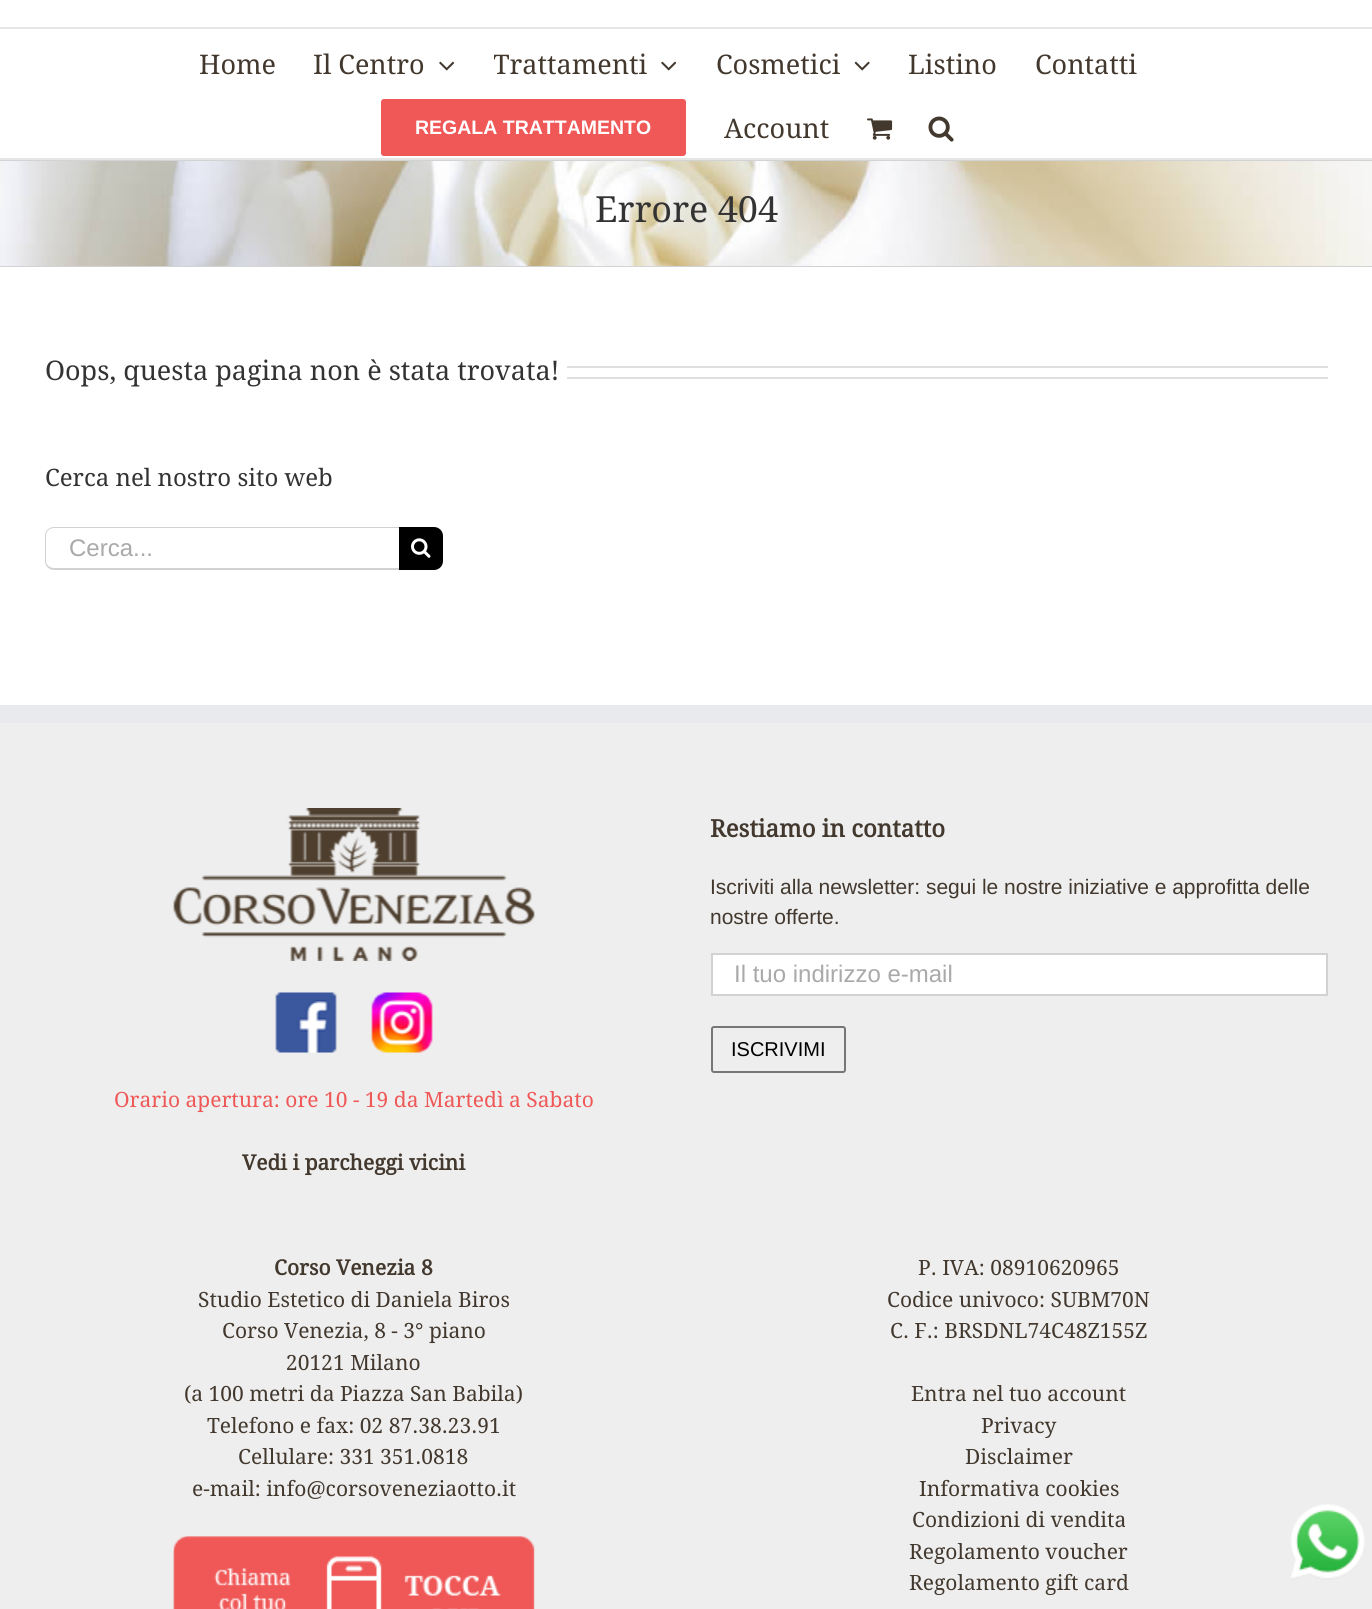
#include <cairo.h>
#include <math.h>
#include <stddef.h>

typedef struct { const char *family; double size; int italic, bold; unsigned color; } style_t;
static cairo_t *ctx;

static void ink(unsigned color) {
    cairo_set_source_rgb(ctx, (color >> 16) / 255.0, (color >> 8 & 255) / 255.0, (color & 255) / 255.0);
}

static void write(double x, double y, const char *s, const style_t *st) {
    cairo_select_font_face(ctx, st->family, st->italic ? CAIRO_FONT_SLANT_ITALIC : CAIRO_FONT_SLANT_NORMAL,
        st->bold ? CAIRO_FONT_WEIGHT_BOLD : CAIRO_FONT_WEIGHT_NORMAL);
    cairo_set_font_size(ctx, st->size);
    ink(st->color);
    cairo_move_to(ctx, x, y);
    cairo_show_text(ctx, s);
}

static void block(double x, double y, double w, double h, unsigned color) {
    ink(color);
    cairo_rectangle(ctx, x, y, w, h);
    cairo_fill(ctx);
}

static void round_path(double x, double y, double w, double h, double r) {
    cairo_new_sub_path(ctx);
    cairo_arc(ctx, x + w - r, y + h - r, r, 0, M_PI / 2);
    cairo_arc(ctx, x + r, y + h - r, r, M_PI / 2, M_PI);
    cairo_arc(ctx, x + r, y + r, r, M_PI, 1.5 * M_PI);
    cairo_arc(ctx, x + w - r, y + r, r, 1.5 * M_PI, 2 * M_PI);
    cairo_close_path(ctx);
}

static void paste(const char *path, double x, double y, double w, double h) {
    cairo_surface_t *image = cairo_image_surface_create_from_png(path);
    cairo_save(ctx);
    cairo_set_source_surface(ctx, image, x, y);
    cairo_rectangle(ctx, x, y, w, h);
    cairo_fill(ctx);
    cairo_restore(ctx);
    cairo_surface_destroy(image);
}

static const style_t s1 = {"Noto Serif", 27, 0, 0, 0x42382e};
static const style_t s2 = {"Liberation Sans", 19.5, 0, 1, 0xffffff};
static const style_t s3 = {"Droid Serif", 36, 0, 0, 0x333333};
static const style_t s4 = {"Droid Serif", 27, 0, 0, 0x333333};
static const style_t s5 = {"Droid Serif", 24, 0, 0, 0x333333};
static const style_t s6 = {"Liberation Sans", 24, 0, 0, 0xaaa9a9};
static const style_t s7 = {"Droid Serif", 24, 0, 1, 0x42382e};
static const style_t s8 = {"Liberation Sans", 21, 0, 0, 0x42382e};
static const style_t s9 = {"Liberation Sans", 20, 0, 0, 0x000000};
static const style_t s10 = {"Droid Serif", 21, 0, 0, 0xf05858};
static const style_t s11 = {"Droid Serif", 21, 0, 1, 0x42382e};
static const style_t s12 = {"Droid Serif", 21, 0, 0, 0x42382e};

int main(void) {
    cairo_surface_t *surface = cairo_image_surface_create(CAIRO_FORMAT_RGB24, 1372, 1609);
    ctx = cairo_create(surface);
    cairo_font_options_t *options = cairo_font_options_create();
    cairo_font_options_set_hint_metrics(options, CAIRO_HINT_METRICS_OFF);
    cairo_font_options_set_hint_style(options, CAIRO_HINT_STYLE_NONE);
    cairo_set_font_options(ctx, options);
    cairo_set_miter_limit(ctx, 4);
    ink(0xffffff);
    cairo_paint(ctx);
    block(0, 27, 1372, 2, 0xe5e5e5);
    block(0, 158, 1372, 2, 0xe5e5e5);
    write(199, 74, "Home", &s1);
    write(313, 74, "Il Centro", &s1);
    paste("pic1.png", 439, 61, 16, 10);
    cairo_save(ctx);
    cairo_rectangle(ctx, 494, 29, 222, 64);
    cairo_clip(ctx);
    write(493, 74, "Trattamenti", &s1);
    cairo_restore(ctx);
    paste("pic1.png", 661, 61, 16, 10);
    write(716, 74, "Cosmetici", &s1);
    paste("pic2.png", 854, 61, 16, 10);
    write(908, 74, "Listino", &s1);
    write(1035, 74, "Contatti", &s1);
    ink(0xf05858);
    round_path(381, 99, 305, 57, 3);
    cairo_fill(ctx);
    write(415, 134, "REGALA TRATTAMENTO", &s2);
    write(724, 138, "Account", &s1);
    paste("pic3.png", 867, 118, 26, 22);
    paste("pic4.png", 928, 116, 26, 26);
    paste("pic5.png", 0, 161, 1372, 105);
    block(0, 160, 1372, 1, 0xd2d3d4);
    block(0, 266, 1372, 1, 0xd2d3d4);
    write(595, 222, "Errore 404", &s3);
    write(45, 380, "Oops, questa pagina non è stata trovata!", &s4);
    block(567, 366, 761, 2, 0xe0dede);
    block(567, 377, 761, 2, 0xe0dede);
    write(45, 486, "Cerca nel nostro sito web", &s5);
    ink(0xd2d2d2);
    cairo_new_path(ctx);
    cairo_move_to(ctx, 54, 528);
    cairo_line_to(ctx, 399, 528);
    cairo_line_to(ctx, 399, 527);
    cairo_line_to(ctx, 54, 527);
    cairo_curve_to(ctx, 49, 527, 45, 531, 45, 536);
    cairo_line_to(ctx, 45, 561);
    cairo_curve_to(ctx, 45, 566, 49, 570, 54, 570);
    cairo_line_to(ctx, 399, 570);
    cairo_line_to(ctx, 399, 568);
    cairo_line_to(ctx, 54, 568);
    cairo_curve_to(ctx, 50, 568, 46, 565, 46, 561);
    cairo_line_to(ctx, 46, 536);
    cairo_curve_to(ctx, 46, 531, 50, 528, 54, 528);
    cairo_close_path(ctx);
    cairo_fill(ctx);
    write(69, 556, "Cerca...", &s6);
    ink(0x000000);
    cairo_new_path(ctx);
    cairo_move_to(ctx, 399, 527);
    cairo_line_to(ctx, 434, 527);
    cairo_curve_to(ctx, 439, 527, 443, 531, 443, 536);
    cairo_line_to(ctx, 443, 561);
    cairo_curve_to(ctx, 443, 566, 439, 570, 434, 570);
    cairo_line_to(ctx, 399, 570);
    cairo_close_path(ctx);
    cairo_fill(ctx);
    paste("pic6.png", 411, 538, 20, 20);
    block(0, 723, 1372, 886, 0xeeeeee);
    block(0, 705, 1372, 18, 0xe9eaee);
    write(710, 837, "Restiamo in contatto", &s7);
    write(710, 894, "Iscriviti alla newsletter: segui le nostre iniziative e approfitta delle", &s8);
    write(710, 924, "nostre offerte.", &s8);
    ink(0xffffff);
    cairo_rectangle(ctx, 712, 954, 615, 41);
    cairo_fill_preserve(ctx);
    ink(0xd2d2d2);
    cairo_stroke(ctx);
    write(734, 982, "Il tuo indirizzo e-mail", &s6);
    round_path(712, 1027, 133, 45, 2);
    ink(0x767676);
    cairo_stroke(ctx);
    write(731, 1056, "ISCRIVIMI", &s9);
    paste("pic7.png", 173, 808, 362, 153);
    paste("pic8.png", 275, 992, 62, 61);
    paste("pic9.png", 371, 992, 62, 61);
    write(114, 1107, "Orario apertura: ore 10 - 19 da Martedì a Sabato", &s10);
    write(242, 1170, "Vedi i parcheggi vicini", &s11);
    write(274, 1275, "Corso Venezia 8", &s11);
    write(198, 1307, "Studio Estetico di Daniela Biros", &s12);
    write(222, 1338, "Corso Venezia, 8 - 3° piano", &s12);
    write(286, 1370, "20121 Milano", &s12);
    write(184, 1401, "(a 100 metri da Piazza San Babila)", &s12);
    write(207, 1433, "Telefono e fax: 02 87.38.23.91", &s12);
    write(238, 1464, "Cellulare: 331 351.0818", &s12);
    write(192, 1496, "e-mail: info@corsoveneziaotto.it", &s12);
    paste("pic10.png", 173, 1536, 362, 73);
    write(918, 1275, "P. IVA: 08910620965", &s12);
    write(887, 1307, "Codice univoco: SUBM70N", &s12);
    write(890, 1338, "C. F.: BRSDNL74C48Z155Z", &s12);
    write(911, 1401, "Entra nel tuo account", &s12);
    write(981, 1433, "Privacy", &s12);
    write(965, 1464, "Disclaimer", &s12);
    write(919, 1496, "Informativa cookies", &s12);
    write(912, 1527, "Condizioni di vendita", &s12);
    write(909, 1559, "Regolamento voucher", &s12);
    write(909, 1590, "Regolamento gift card", &s12);
    paste("pic11.png", 1290, 1504, 75, 76);
    cairo_surface_write_to_png(surface, "screenshot.png");
    cairo_font_options_destroy(options);
    cairo_destroy(ctx);
    cairo_surface_destroy(surface);
    return 0;
}
